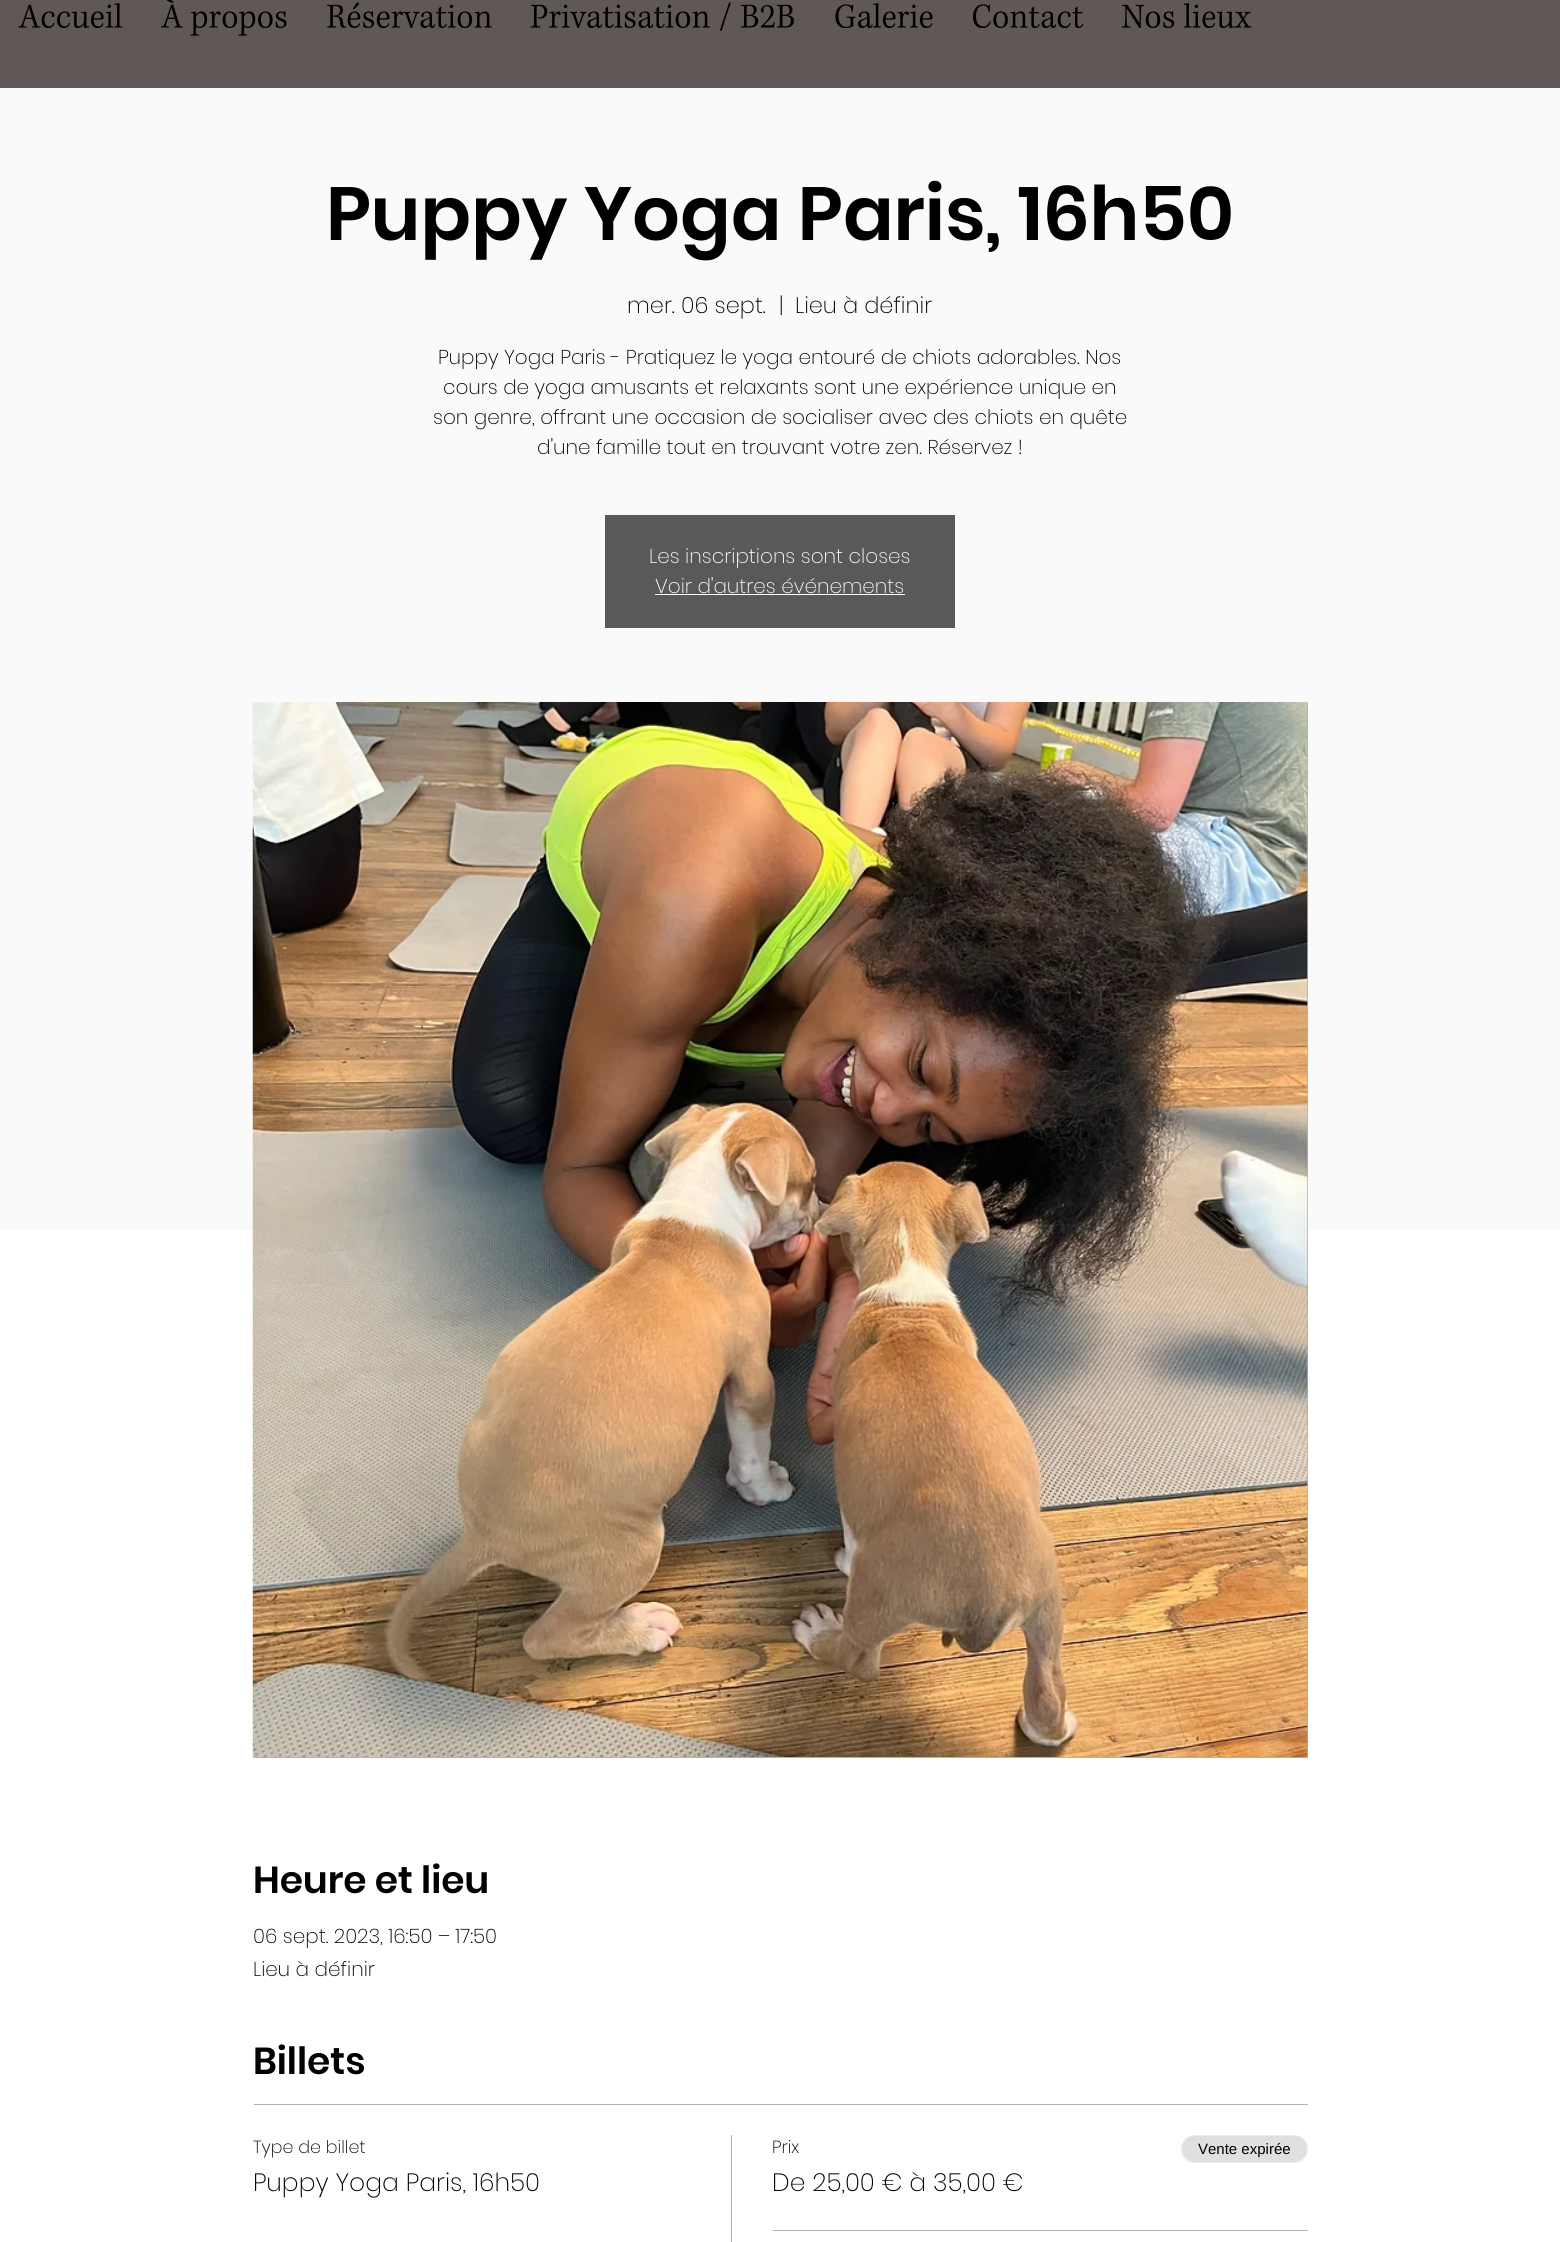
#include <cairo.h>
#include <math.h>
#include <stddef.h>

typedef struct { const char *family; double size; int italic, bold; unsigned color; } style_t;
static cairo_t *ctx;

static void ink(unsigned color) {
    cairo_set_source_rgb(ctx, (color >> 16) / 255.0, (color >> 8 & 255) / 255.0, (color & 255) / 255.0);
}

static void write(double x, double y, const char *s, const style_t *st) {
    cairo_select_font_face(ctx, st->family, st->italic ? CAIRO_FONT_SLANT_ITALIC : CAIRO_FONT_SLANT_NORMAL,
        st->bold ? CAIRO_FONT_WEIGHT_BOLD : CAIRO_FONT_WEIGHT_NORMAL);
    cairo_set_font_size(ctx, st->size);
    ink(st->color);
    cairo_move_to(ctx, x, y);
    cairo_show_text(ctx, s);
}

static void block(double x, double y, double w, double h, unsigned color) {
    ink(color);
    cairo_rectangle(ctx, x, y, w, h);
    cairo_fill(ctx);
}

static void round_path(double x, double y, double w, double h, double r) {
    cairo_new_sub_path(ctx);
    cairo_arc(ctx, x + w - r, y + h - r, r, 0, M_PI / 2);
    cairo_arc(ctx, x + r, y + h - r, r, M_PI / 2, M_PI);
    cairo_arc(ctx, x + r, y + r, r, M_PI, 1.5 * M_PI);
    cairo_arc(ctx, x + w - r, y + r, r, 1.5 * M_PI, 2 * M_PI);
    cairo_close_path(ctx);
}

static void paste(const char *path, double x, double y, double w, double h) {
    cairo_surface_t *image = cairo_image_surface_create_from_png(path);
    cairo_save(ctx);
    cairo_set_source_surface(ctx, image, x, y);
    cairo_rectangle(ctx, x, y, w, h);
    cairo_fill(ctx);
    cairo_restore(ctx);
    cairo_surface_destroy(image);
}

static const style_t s1 = {"Poppins SemiBold", 75, 0, 0, 0x000000};
static const style_t s2 = {"Poppins ExtraLight", 22.5, 0, 0, 0x000000};
static const style_t s3 = {"Poppins ExtraLight", 20, 0, 0, 0x000000};
static const style_t s4 = {"Poppins ExtraLight", 20, 0, 0, 0xffffff};
static const style_t s5 = {"Poppins SemiBold", 37.5, 0, 0, 0x000000};
static const style_t s6 = {"Poppins ExtraLight", 17.5, 0, 0, 0x000000};
static const style_t s7 = {"Poppins ExtraLight", 25, 0, 0, 0x000000};
static const style_t s8 = {"Liberation Sans", 15, 0, 0, 0x000000};

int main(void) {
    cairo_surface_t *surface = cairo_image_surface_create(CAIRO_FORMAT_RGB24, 1560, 2242);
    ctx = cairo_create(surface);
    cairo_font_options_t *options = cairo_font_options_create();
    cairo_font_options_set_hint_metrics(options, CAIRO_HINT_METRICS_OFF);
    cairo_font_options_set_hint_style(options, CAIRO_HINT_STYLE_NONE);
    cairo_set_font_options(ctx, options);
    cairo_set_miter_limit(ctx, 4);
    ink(0xffffff);
    cairo_paint(ctx);
    block(0, 0, 1560, 88, 0x605757);
    paste("pic1.png", 18, 3, 105, 25);
    paste("pic2.png", 161, 0, 126, 36);
    paste("pic3.png", 327, 2, 165, 26);
    paste("pic4.png", 530, 2, 264, 29);
    paste("pic5.png", 835, 3, 98, 25);
    paste("pic6.png", 972, 4, 112, 24);
    paste("pic7.png", 1121, 3, 131, 25);
    block(0, 88, 1560, 1142, 0xfafafa);
    write(326, 240, "Puppy Yoga Paris, 16h50", &s1);
    write(627, 313, "mer. 06 sept.", &s2);
    write(779, 313, "|", &s2);
    write(795, 313, "Lieu à définir", &s2);
    write(438, 364, "Puppy Yoga Paris - Pratiquez le yoga entouré de chiots adorables. Nos", &s3);
    write(443, 394, "cours de yoga amusants et relaxants sont une expérience unique en", &s3);
    write(433, 424, "son genre, offrant une occasion de socialiser avec des chiots en quête", &s3);
    write(537, 454, "d'une famille tout en trouvant votre zen. Réservez !", &s3);
    block(605, 515, 350, 113, 0x595959);
    write(649, 563, "Les inscriptions sont closes", &s4);
    write(655, 593, "Voir d'autres événements", &s4);
    block(655, 594, 250, 1, 0xffffff);
    block(253, 703, 1055, 1055, 0xb6afb0);
    paste("pic8.png", 252, 702, 1056, 1055);
    write(253, 1893, "Heure et lieu", &s5);
    write(253, 1943, "06 sept. 2023, 16:50 – 17:50", &s3);
    write(253, 1976, "Lieu à définir", &s3);
    write(253, 2074, "Billets", &s5);
    block(254, 2104, 1054, 1, 0xb3b3b3);
    write(253, 2153, "Type de billet", &s6);
    write(253, 2191, "Puppy Yoga Paris, 16h50", &s7);
    block(731, 2135, 1, 107, 0xb3b3b3);
    write(772, 2153, "Prix", &s6);
    write(772, 2191, "De 25,00 € à 35,00 €", &s7);
    ink(0xe0e0e0);
    round_path(1181, 2135, 127, 28, 14);
    cairo_fill(ctx);
    round_path(1181.5, 2135.5, 126, 27, 13.5);
    cairo_set_source_rgba(ctx, 1, 1, 1, 0.4);
    cairo_set_line_width(ctx, 1);
    cairo_stroke(ctx);
    write(1198, 2154, "Vente expirée", &s8);
    block(773, 2230, 535, 1, 0xb3b3b3);
    cairo_surface_write_to_png(surface, "screenshot.png");
    cairo_font_options_destroy(options);
    cairo_destroy(ctx);
    cairo_surface_destroy(surface);
    return 0;
}
